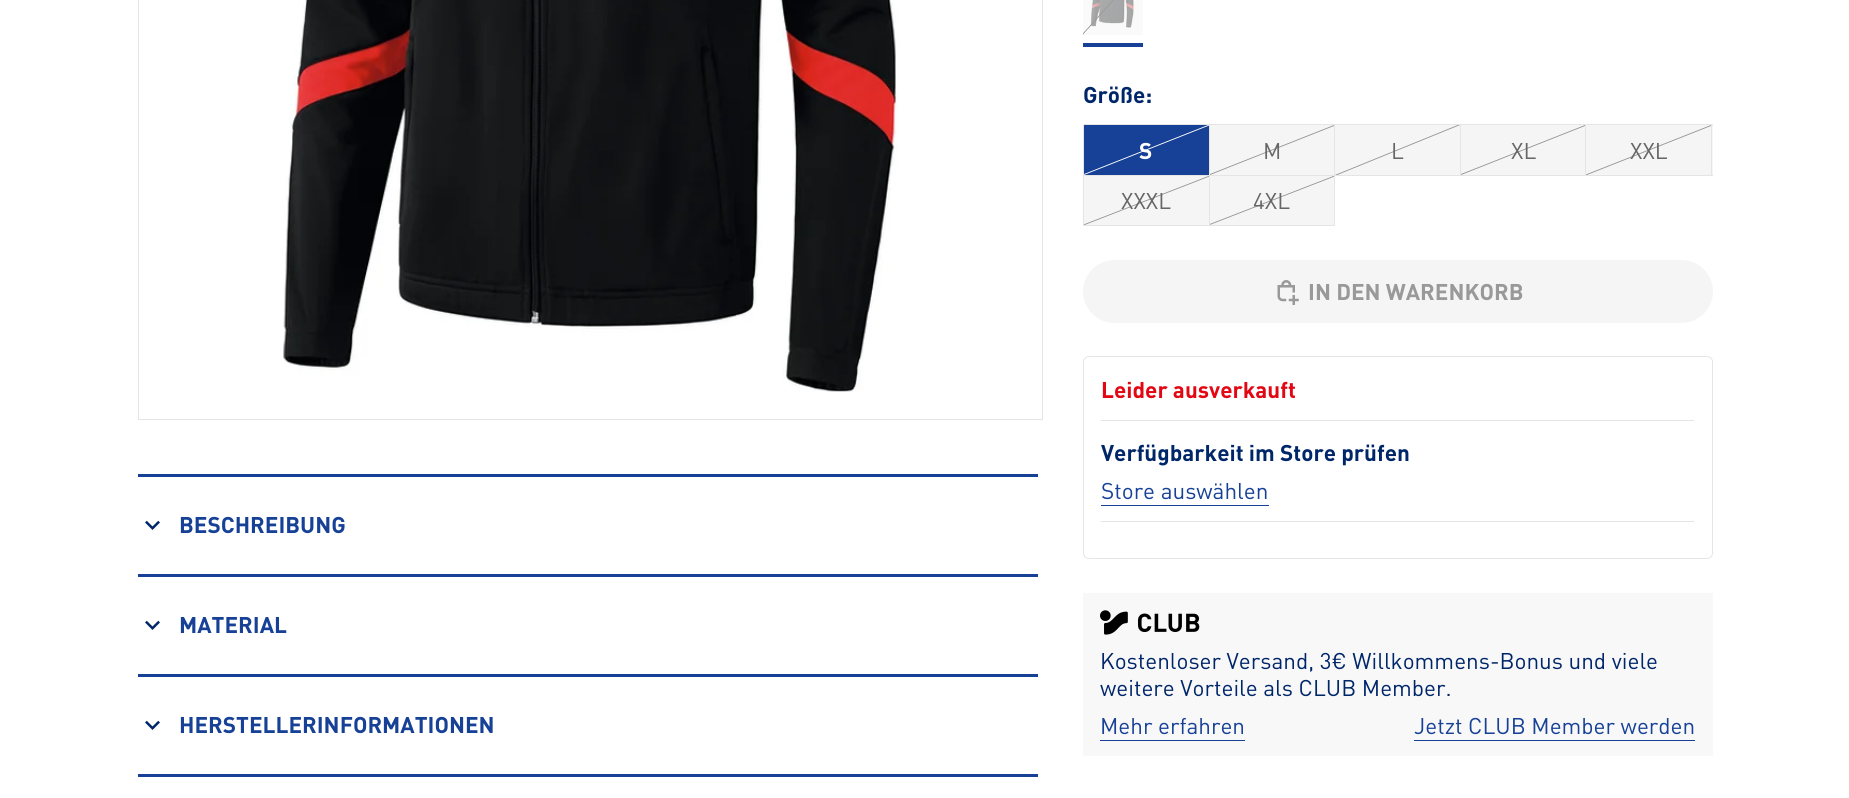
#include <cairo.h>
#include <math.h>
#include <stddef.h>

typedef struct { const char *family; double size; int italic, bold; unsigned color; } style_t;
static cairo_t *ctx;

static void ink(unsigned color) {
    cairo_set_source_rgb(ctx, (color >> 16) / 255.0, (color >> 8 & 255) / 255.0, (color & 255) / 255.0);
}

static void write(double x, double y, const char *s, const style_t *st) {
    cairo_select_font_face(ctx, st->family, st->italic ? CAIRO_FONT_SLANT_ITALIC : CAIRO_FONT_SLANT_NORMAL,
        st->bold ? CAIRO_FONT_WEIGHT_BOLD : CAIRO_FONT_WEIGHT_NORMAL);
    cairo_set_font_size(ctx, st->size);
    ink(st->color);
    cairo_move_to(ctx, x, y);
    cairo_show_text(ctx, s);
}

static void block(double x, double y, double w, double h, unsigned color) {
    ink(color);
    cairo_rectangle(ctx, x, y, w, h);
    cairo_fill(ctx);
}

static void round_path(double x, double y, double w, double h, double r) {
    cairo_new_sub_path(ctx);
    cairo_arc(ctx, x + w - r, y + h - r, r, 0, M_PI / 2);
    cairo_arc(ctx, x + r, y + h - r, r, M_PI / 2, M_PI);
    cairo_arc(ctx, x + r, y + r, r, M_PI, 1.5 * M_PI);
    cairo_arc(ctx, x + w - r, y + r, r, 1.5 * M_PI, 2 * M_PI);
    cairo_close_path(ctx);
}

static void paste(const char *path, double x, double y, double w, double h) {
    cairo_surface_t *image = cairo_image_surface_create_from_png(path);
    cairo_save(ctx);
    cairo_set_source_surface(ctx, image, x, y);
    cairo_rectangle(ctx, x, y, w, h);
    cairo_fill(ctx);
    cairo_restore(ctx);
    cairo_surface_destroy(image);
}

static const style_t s1 = {"DIN", 22.5, 0, 1, 0x00266a};
static const style_t s2 = {"DIN", 22.5, 0, 1, 0xffffff};
static const style_t s3 = {"DIN", 22.5, 0, 0, 0x666666};
static const style_t s4 = {"DIN", 22.5, 0, 1, 0x999999};
static const style_t s5 = {"DIN", 22.5, 0, 1, 0xe30613};
static const style_t s6 = {"DIN", 22.5, 0, 0, 0x164196};
static const style_t s7 = {"DIN", 22.5, 0, 0, 0x00266a};
static const style_t s8 = {"DIN", 22.5, 0, 1, 0x164196};

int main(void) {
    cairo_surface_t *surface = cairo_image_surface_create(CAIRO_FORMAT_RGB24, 1849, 798);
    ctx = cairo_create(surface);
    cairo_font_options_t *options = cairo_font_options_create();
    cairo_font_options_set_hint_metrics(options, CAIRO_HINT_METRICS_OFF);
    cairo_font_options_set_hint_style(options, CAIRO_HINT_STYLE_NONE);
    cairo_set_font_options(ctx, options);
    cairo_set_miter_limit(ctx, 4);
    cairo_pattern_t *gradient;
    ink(0xffffff);
    cairo_paint(ctx);
    block(1083, 0, 60, 35, 0xfafafa);
    cairo_rectangle(ctx, 138.5, -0.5, 904, 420);
    ink(0xe5e5e5);
    cairo_set_line_width(ctx, 1);
    cairo_stroke(ctx);
    paste("pic1.png", 283, 0, 616, 392);
    block(1083, 43, 60, 4, 0x164196);
    paste("pic2.png", 1090, 0, 45, 28);
    gradient = cairo_pattern_create_linear(1146, 31, 1079, -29);
    cairo_pattern_add_color_stop_rgba(gradient, 0.49, 0.6, 0.6, 0.6, 0);
    cairo_pattern_add_color_stop_rgba(gradient, 0.5, 0.6, 0.6, 0.6, 1);
    cairo_pattern_add_color_stop_rgba(gradient, 0.51, 0.6, 0.6, 0.6, 0);
    cairo_set_source(ctx, gradient);
    cairo_pattern_destroy(gradient);
    cairo_rectangle(ctx, 1083, 0, 31, 35);
    cairo_fill(ctx);
    write(1083, 103, "Größe:", &s1);
    block(1083, 125, 1, 101, 0xe5e5e5);
    block(1084, 124, 629, 1, 0xe5e5e5);
    block(1209, 124, 1, 52, 0xe5e5e5);
    gradient = cairo_pattern_create_linear(1163, 193, 1129, 107);
    cairo_pattern_add_color_stop_rgba(gradient, 0.49, 0.086, 0.255, 0.588, 1);
    cairo_pattern_add_color_stop_rgba(gradient, 0.5, 0.973, 0.973, 0.973, 1);
    cairo_pattern_add_color_stop_rgba(gradient, 0.51, 0.086, 0.255, 0.588, 1);
    cairo_set_source(ctx, gradient);
    cairo_pattern_destroy(gradient);
    cairo_rectangle(ctx, 1084, 125, 125, 50);
    cairo_fill(ctx);
    write(1139, 159, "S", &s2);
    block(1334, 124, 1, 52, 0xe5e5e5);
    gradient = cairo_pattern_create_linear(1289, 193, 1255, 107);
    cairo_pattern_add_color_stop_rgba(gradient, 0.49, 0.961, 0.961, 0.961, 1);
    cairo_pattern_add_color_stop_rgba(gradient, 0.5, 0.6, 0.6, 0.6, 1);
    cairo_pattern_add_color_stop_rgba(gradient, 0.51, 0.961, 0.961, 0.961, 1);
    cairo_set_source(ctx, gradient);
    cairo_pattern_destroy(gradient);
    cairo_rectangle(ctx, 1210, 125, 124, 50);
    cairo_fill(ctx);
    write(1263, 159, "M", &s3);
    block(1460, 124, 1, 52, 0xe5e5e5);
    block(1335, 175, 126, 1, 0xe5e5e5);
    gradient = cairo_pattern_create_linear(1415, 193, 1380, 107);
    cairo_pattern_add_color_stop_rgba(gradient, 0.49, 0.961, 0.961, 0.961, 1);
    cairo_pattern_add_color_stop_rgba(gradient, 0.5, 0.6, 0.6, 0.6, 1);
    cairo_pattern_add_color_stop_rgba(gradient, 0.51, 0.961, 0.961, 0.961, 1);
    cairo_set_source(ctx, gradient);
    cairo_pattern_destroy(gradient);
    cairo_rectangle(ctx, 1335, 125, 125, 50);
    cairo_fill(ctx);
    write(1391, 159, "L", &s3);
    block(1585, 124, 1, 52, 0xe5e5e5);
    block(1461, 175, 125, 1, 0xe5e5e5);
    gradient = cairo_pattern_create_linear(1540, 193, 1506, 107);
    cairo_pattern_add_color_stop_rgba(gradient, 0.49, 0.961, 0.961, 0.961, 1);
    cairo_pattern_add_color_stop_rgba(gradient, 0.5, 0.6, 0.6, 0.6, 1);
    cairo_pattern_add_color_stop_rgba(gradient, 0.51, 0.961, 0.961, 0.961, 1);
    cairo_set_source(ctx, gradient);
    cairo_pattern_destroy(gradient);
    cairo_rectangle(ctx, 1461, 125, 124, 50);
    cairo_fill(ctx);
    write(1511, 159, "XL", &s3);
    block(1712, 125, 1, 50, 0xf5f5f5);
    block(1711, 124, 1, 52, 0xe5e5e5);
    block(1586, 175, 127, 1, 0xe5e5e5);
    gradient = cairo_pattern_create_linear(1666, 193, 1632, 107);
    cairo_pattern_add_color_stop_rgba(gradient, 0.49, 0.961, 0.961, 0.961, 1);
    cairo_pattern_add_color_stop_rgba(gradient, 0.5, 0.6, 0.6, 0.6, 1);
    cairo_pattern_add_color_stop_rgba(gradient, 0.51, 0.961, 0.961, 0.961, 1);
    cairo_set_source(ctx, gradient);
    cairo_pattern_destroy(gradient);
    cairo_rectangle(ctx, 1586, 125, 125, 50);
    cairo_fill(ctx);
    write(1630, 159, "XXL", &s3);
    block(1084, 175, 251, 1, 0xe5e5e5);
    block(1209, 175, 1, 51, 0xe5e5e5);
    block(1084, 225, 126, 1, 0xe5e5e5);
    gradient = cairo_pattern_create_linear(1163, 243, 1130, 158);
    cairo_pattern_add_color_stop_rgba(gradient, 0.49, 0.961, 0.961, 0.961, 1);
    cairo_pattern_add_color_stop_rgba(gradient, 0.5, 0.6, 0.6, 0.6, 1);
    cairo_pattern_add_color_stop_rgba(gradient, 0.51, 0.961, 0.961, 0.961, 1);
    cairo_set_source(ctx, gradient);
    cairo_pattern_destroy(gradient);
    cairo_rectangle(ctx, 1084, 176, 125, 49);
    cairo_fill(ctx);
    write(1121, 209, "XXXL", &s3);
    block(1334, 175, 1, 51, 0xe5e5e5);
    block(1210, 225, 125, 1, 0xe5e5e5);
    gradient = cairo_pattern_create_linear(1288, 243, 1255, 158);
    cairo_pattern_add_color_stop_rgba(gradient, 0.49, 0.961, 0.961, 0.961, 1);
    cairo_pattern_add_color_stop_rgba(gradient, 0.5, 0.6, 0.6, 0.6, 1);
    cairo_pattern_add_color_stop_rgba(gradient, 0.51, 0.961, 0.961, 0.961, 1);
    cairo_set_source(ctx, gradient);
    cairo_pattern_destroy(gradient);
    cairo_rectangle(ctx, 1210, 176, 124, 49);
    cairo_fill(ctx);
    write(1253, 209, "4XL", &s3);
    ink(0xf5f5f5);
    round_path(1083, 260, 630, 63, 31.5);
    cairo_fill(ctx);
    paste("pic3.png", 1277, 280, 22, 25);
    write(1308, 300, "IN DEN WARENKORB", &s4);
    round_path(1083.5, 356.5, 629, 202, 5.5);
    ink(0xe5e5e5);
    cairo_stroke(ctx);
    block(1101, 420, 593, 1, 0xe5e5e5);
    write(1101, 398, "Leider ausverkauft", &s5);
    block(1101, 521, 593, 1, 0xe5e5e5);
    write(1101, 461, "Verfügbarkeit im Store prüfen", &s1);
    write(1101, 499, "Store auswählen", &s6);
    block(1101, 505, 168, 1, 0x164196);
    block(1083, 593, 630, 163, 0xf8f8f8);
    paste("pic4.png", 1100, 610, 100, 25);
    write(1100, 669, "Kostenloser Versand, 3€ Willkommens-Bonus und viele", &s7);
    write(1100, 696, "weitere Vorteile als CLUB Member.", &s7);
    write(1100, 734, "Mehr erfahren", &s6);
    block(1100, 740, 145, 1, 0x164196);
    write(1414, 734, "Jetzt CLUB Member werden", &s6);
    block(1414, 740, 281, 1, 0x164196);
    block(138, 474, 900, 3, 0x164196);
    block(138, 574, 900, 3, 0x164196);
    paste("pic5.png", 145, 520, 15, 10);
    write(179, 533, "BESCHREIBUNG", &s8);
    block(138, 674, 900, 3, 0x164196);
    paste("pic5.png", 145, 620, 15, 10);
    write(179, 633, "MATERIAL", &s8);
    block(138, 774, 900, 3, 0x164196);
    paste("pic5.png", 145, 720, 15, 10);
    write(179, 733, "HERSTELLERINFORMATIONEN", &s8);
    cairo_surface_write_to_png(surface, "screenshot.png");
    cairo_font_options_destroy(options);
    cairo_destroy(ctx);
    cairo_surface_destroy(surface);
    return 0;
}
